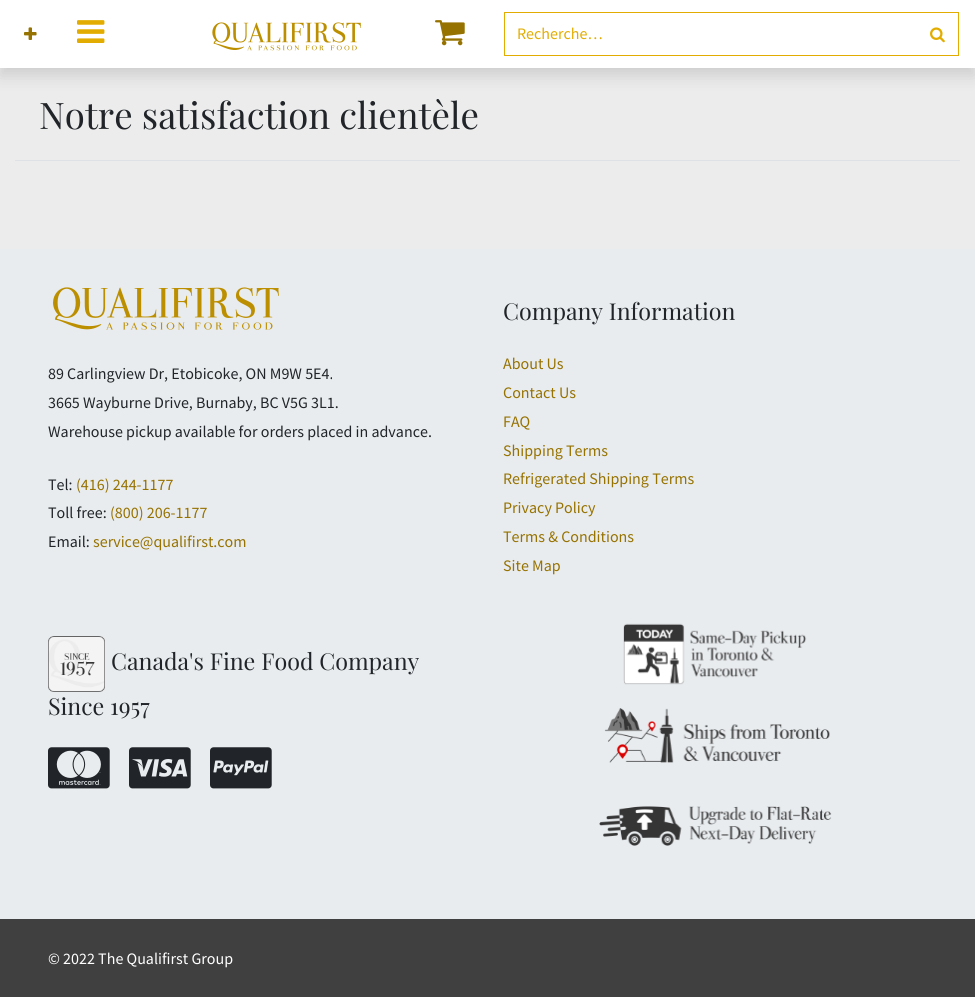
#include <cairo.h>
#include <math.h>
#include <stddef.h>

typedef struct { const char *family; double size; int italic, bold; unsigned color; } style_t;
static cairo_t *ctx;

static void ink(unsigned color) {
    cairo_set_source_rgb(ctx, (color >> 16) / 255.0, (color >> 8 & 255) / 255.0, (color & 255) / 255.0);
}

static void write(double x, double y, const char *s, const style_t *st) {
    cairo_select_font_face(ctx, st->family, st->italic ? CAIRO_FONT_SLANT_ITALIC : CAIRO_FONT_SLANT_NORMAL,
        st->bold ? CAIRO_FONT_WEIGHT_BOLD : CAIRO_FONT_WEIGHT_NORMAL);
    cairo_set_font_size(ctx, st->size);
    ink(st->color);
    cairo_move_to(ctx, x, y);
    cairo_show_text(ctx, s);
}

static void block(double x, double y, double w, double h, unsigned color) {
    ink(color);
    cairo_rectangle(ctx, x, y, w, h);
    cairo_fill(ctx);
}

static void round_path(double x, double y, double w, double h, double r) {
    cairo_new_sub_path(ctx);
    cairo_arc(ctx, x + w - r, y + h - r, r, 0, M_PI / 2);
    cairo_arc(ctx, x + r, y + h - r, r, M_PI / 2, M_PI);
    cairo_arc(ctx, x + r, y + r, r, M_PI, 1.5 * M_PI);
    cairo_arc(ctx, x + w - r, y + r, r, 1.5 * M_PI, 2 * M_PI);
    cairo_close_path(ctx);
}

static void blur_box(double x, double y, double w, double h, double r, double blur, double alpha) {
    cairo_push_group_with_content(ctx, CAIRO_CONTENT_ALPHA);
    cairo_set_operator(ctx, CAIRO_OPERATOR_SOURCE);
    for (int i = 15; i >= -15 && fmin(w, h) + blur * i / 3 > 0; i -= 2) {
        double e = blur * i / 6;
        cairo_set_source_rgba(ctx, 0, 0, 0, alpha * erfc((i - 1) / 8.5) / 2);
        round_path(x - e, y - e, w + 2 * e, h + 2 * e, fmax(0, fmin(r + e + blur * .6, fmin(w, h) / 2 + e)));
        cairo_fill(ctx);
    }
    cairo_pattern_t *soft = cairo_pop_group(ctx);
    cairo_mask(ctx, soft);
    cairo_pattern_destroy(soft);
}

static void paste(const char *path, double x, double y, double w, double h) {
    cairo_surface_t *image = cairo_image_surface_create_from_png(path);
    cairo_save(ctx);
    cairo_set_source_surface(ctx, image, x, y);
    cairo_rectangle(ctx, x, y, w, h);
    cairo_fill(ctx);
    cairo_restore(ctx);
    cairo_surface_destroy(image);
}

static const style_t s1 = {"Source Sans Pro", 16, 0, 0, 0xe2ad00};
static const style_t s2 = {"Playfair Display", 36.6, 0, 0, 0x212529};
static const style_t s3 = {"Source Sans Pro", 16, 0, 0, 0x212529};
static const style_t s4 = {"Source Sans Pro", 16, 0, 0, 0x967200};
static const style_t s5 = {"Playfair Display", 23.25, 0, 0, 0x212529};
static const style_t s6 = {"Source Sans Pro", 16, 0, 0, 0xffffff};

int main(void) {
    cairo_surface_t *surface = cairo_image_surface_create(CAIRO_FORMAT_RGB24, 975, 997);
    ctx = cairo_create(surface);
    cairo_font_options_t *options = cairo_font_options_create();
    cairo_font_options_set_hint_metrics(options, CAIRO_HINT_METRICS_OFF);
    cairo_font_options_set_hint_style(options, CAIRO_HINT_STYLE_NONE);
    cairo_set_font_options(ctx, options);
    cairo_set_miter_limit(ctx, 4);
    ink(0xececec);
    cairo_paint(ctx);
    ink(0x222222);
    blur_box(0, 8, 975, 68, 0, 8, 0.15);
    block(0, 0, 975, 68, 0xffffff);
    paste("pic1.png", 24, 27, 13, 13);
    paste("pic2.png", 77, 20, 28, 23);
    paste("pic3.png", 212, 22, 150, 29);
    paste("pic4.png", 435, 20, 30, 26);
    cairo_rectangle(ctx, 504.5, 12.5, 454, 43);
    ink(0xe2ad00);
    cairo_set_line_width(ctx, 1);
    cairo_stroke(ctx);
    write(517, 39, "Recherche…", &s1);
    paste("pic5.png", 930, 27, 15, 16);
    block(15, 160, 945, 1, 0xdee2e6);
    write(39, 129, "Notre satisfaction clientèle", &s2);
    block(0, 249, 975, 670, 0xe9ecef);
    paste("pic6.png", 53, 287, 226, 43);
    write(48, 379, "89 Carlingview Dr, Etobicoke, ON M9W 5E4.", &s3);
    write(48, 408, "3665 Wayburne Drive, Burnaby, BC V5G 3L1.", &s3);
    write(48, 437, "Warehouse pickup available for orders placed in advance.", &s3);
    write(48, 490, "Tel:", &s3);
    write(76, 490, "(416) 244-1177", &s4);
    write(48, 518, "Toll free:", &s3);
    write(110, 518, "(800) 206-1177", &s4);
    write(48, 547, "Email:", &s3);
    write(93, 547, "service@qualifirst.com", &s4);
    write(503, 320, "Company Information", &s5);
    write(503, 369, "About Us", &s4);
    write(503, 398, "Contact Us", &s4);
    write(503, 427, "FAQ", &s4);
    write(503, 456, "Shipping Terms", &s4);
    write(503, 484, "Refrigerated Shipping Terms", &s4);
    write(503, 513, "Privacy Policy", &s4);
    write(503, 542, "Terms & Conditions", &s4);
    write(503, 571, "Site Map", &s4);
    paste("pic7.png", 48, 636, 57, 56);
    write(111, 670, "Canada's Fine Food Company", &s5);
    write(48, 715, "Since 1957", &s5);
    paste("pic8.png", 48, 747, 62, 42);
    paste("pic9.png", 129, 747, 62, 42);
    paste("pic10.png", 210, 747, 62, 42);
    paste("pic11.png", 623, 623, 184, 62);
    paste("pic12.png", 604, 708, 226, 55);
    paste("pic13.png", 599, 806, 233, 40);
    block(0, 919, 975, 78, 0x404040);
    write(48, 964, "© 2022 The Qualifirst Group", &s6);
    cairo_surface_write_to_png(surface, "screenshot.png");
    cairo_font_options_destroy(options);
    cairo_destroy(ctx);
    cairo_surface_destroy(surface);
    return 0;
}
